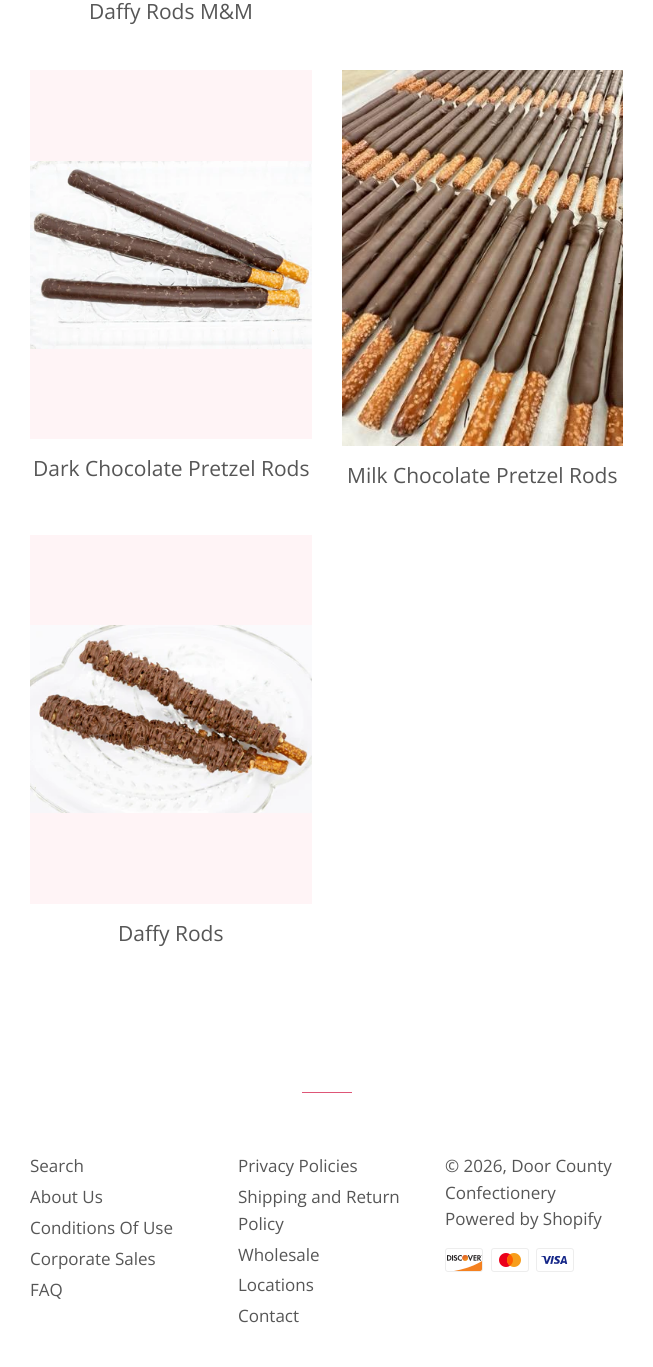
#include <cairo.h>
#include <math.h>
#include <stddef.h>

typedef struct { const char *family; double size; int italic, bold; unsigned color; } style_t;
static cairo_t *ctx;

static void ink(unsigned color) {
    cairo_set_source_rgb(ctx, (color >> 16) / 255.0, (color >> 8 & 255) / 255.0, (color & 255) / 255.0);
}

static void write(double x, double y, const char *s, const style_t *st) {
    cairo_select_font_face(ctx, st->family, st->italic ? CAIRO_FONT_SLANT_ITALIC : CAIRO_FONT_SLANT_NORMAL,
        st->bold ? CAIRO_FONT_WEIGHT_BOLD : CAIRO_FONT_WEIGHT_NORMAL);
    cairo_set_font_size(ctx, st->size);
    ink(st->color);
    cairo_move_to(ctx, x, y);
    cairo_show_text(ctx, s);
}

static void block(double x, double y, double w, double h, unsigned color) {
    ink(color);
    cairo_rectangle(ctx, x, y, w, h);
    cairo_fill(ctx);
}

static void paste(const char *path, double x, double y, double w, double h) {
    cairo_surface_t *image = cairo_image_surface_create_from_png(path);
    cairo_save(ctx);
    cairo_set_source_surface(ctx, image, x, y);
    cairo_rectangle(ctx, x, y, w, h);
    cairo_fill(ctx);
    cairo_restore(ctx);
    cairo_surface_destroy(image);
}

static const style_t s1 = {"Open Sans", 21, 0, 0, 0x565656};
static const style_t s2 = {"Open Sans", 17, 0, 0, 0x565656};

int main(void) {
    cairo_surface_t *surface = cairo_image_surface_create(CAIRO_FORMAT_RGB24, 653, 1367);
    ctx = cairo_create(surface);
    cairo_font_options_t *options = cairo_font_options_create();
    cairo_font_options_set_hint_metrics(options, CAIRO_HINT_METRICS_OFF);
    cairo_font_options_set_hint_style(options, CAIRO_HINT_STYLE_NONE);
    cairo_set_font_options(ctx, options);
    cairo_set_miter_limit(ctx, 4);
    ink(0xffffff);
    cairo_paint(ctx);
    write(89, 19, "Daffy Rods M&M", &s1);
    block(30, 70, 282, 369, 0xfff4f6);
    paste("pic1.png", 30, 161, 282, 188);
    write(33, 476, "Dark Chocolate Pretzel Rods", &s1);
    paste("pic2.png", 342, 70, 281, 376);
    write(347, 483, "Milk Chocolate Pretzel Rods", &s1);
    block(30, 535, 282, 369, 0xfff4f6);
    paste("pic3.png", 30, 625, 282, 188);
    write(118, 941, "Daffy Rods", &s1);
    block(302, 1092, 50, 1, 0xde5677);
    write(30, 1172, "Search", &s2);
    write(30, 1203, "About Us", &s2);
    write(30, 1234, "Conditions Of Use", &s2);
    write(30, 1265, "Corporate Sales", &s2);
    write(30, 1296, "FAQ", &s2);
    write(238, 1172, "Privacy Policies", &s2);
    write(238, 1203, "Shipping and Return", &s2);
    write(238, 1230, "Policy", &s2);
    write(238, 1261, "Wholesale", &s2);
    write(238, 1291, "Locations", &s2);
    write(238, 1322, "Contact", &s2);
    write(445, 1172, "© 2026, Door County", &s2);
    write(445, 1199, "Confectionery", &s2);
    write(445, 1225, "Powered by Shopify", &s2);
    paste("pic4.png", 445, 1248, 38, 24);
    paste("pic5.png", 491, 1248, 38, 24);
    paste("pic6.png", 536, 1248, 38, 24);
    cairo_surface_write_to_png(surface, "screenshot.png");
    cairo_font_options_destroy(options);
    cairo_destroy(ctx);
    cairo_surface_destroy(surface);
    return 0;
}
